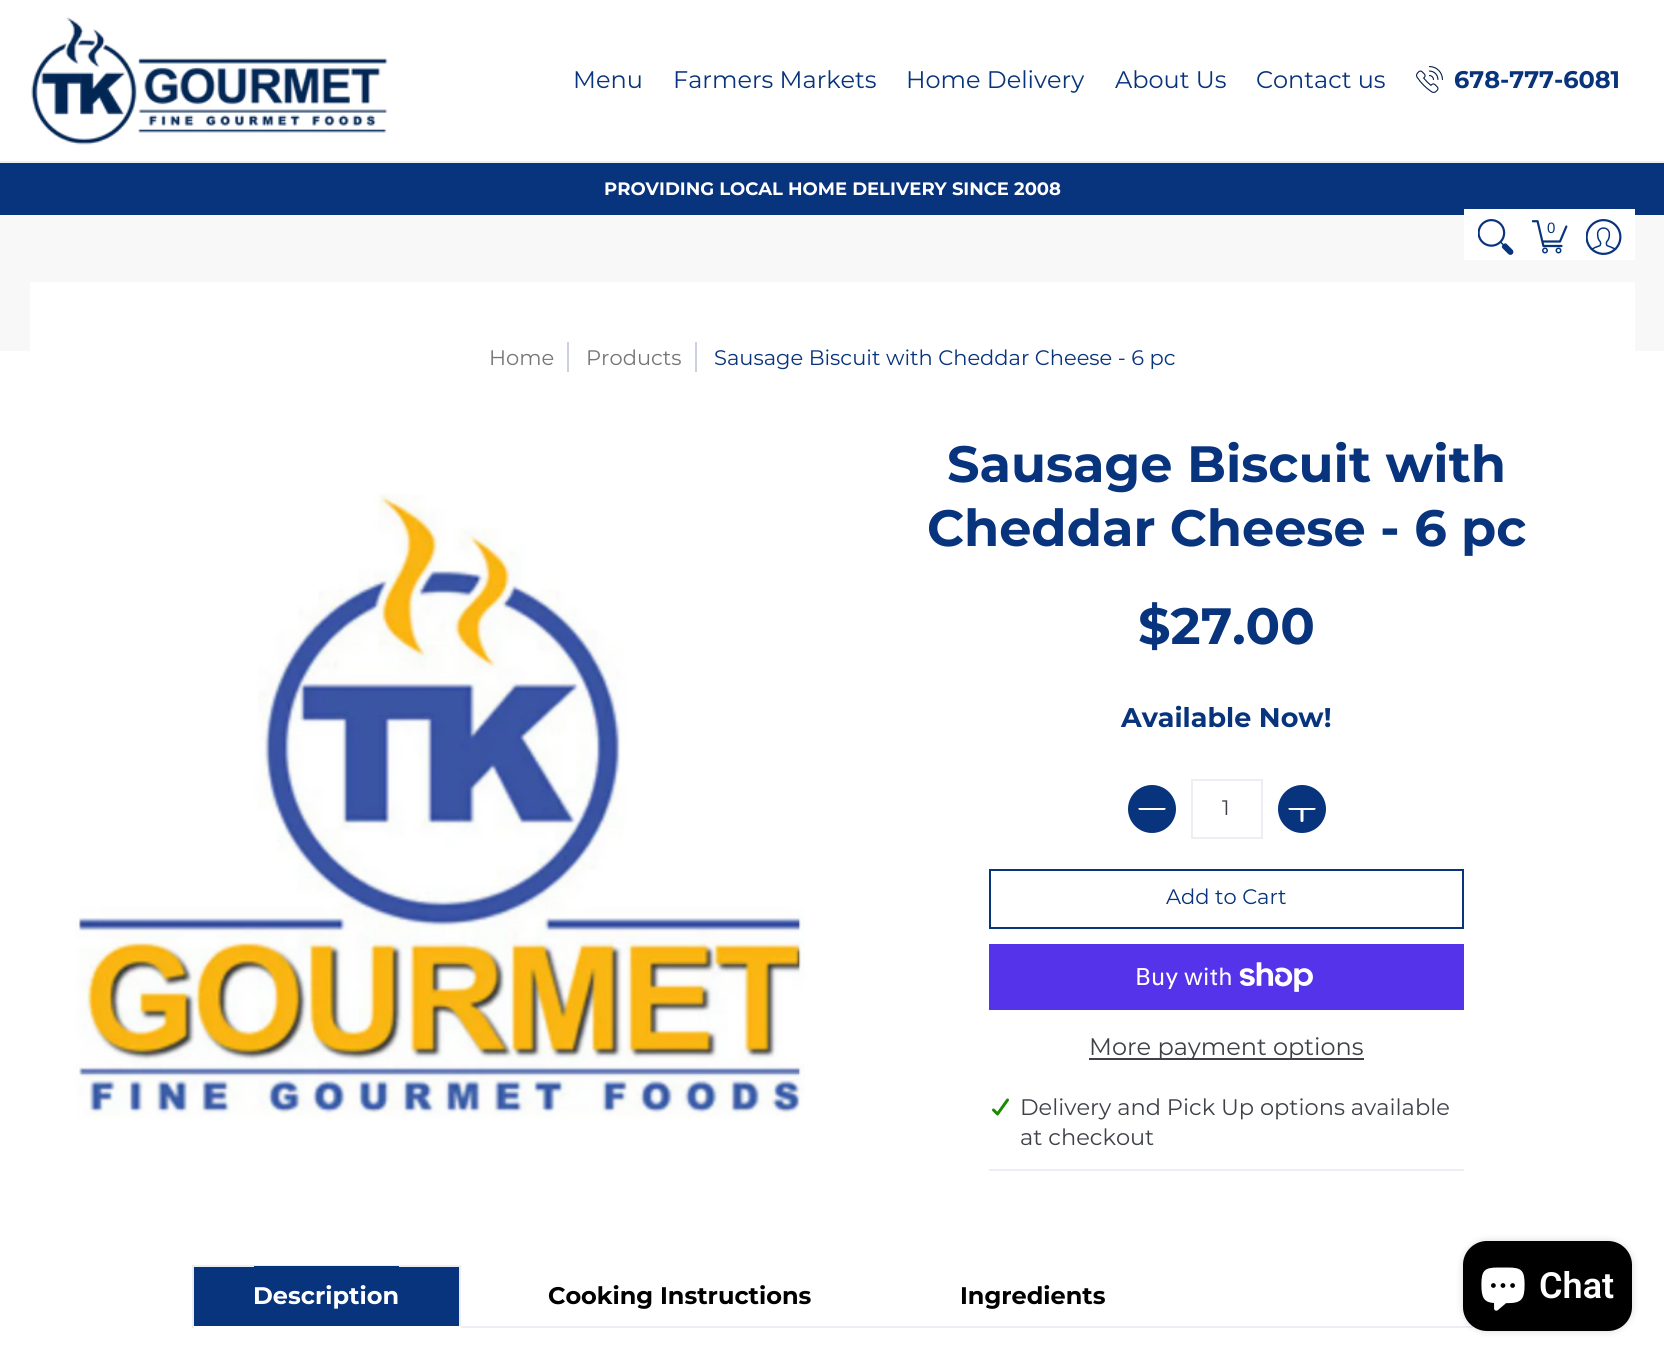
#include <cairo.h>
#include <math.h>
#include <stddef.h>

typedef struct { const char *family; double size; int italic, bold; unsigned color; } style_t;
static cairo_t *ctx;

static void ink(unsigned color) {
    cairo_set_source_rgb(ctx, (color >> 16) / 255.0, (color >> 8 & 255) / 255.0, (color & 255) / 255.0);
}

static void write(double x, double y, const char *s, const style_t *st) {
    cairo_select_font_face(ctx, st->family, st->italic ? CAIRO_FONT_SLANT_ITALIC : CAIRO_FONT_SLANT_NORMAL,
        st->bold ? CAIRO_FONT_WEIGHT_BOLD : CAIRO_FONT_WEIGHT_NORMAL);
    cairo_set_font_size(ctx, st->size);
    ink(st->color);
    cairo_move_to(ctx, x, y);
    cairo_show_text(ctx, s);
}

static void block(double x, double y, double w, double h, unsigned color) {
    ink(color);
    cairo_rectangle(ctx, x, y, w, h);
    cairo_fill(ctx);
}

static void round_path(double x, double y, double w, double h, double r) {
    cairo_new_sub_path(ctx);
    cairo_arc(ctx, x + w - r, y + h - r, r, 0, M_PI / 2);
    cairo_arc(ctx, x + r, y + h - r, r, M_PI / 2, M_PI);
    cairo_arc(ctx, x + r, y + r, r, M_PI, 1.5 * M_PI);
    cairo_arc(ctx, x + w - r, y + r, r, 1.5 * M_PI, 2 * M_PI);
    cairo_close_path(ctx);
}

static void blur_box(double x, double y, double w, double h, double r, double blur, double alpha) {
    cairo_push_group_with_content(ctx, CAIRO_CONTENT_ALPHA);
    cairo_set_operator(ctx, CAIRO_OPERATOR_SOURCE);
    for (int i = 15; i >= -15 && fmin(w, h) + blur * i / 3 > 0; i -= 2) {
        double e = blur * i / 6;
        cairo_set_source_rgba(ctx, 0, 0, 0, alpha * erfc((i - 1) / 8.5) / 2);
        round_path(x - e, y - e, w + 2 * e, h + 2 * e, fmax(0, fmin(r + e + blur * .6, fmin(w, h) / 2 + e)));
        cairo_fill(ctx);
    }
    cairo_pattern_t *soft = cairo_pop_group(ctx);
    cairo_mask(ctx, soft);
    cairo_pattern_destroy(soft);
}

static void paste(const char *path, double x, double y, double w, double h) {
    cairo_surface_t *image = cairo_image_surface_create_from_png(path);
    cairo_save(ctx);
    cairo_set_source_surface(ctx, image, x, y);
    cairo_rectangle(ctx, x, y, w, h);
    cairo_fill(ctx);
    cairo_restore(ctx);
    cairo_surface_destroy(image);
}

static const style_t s1 = {"Montserrat", 24, 0, 0, 0x08337d};
static const style_t s2 = {"Montserrat", 24, 0, 1, 0x08337d};
static const style_t s3 = {"Liberation Sans", 15, 0, 0, 0x08337d};
static const style_t s4 = {"Montserrat", 18, 0, 1, 0xffffff};
static const style_t s5 = {"Montserrat", 21, 0, 0, 0x767676};
static const style_t s6 = {"Montserrat", 21, 0, 0, 0x08337d};
static const style_t s7 = {"Montserrat", 51, 0, 1, 0x08337d};
static const style_t s8 = {"Montserrat", 27, 0, 1, 0x08337d};
static const style_t s9 = {"Montserrat", 21, 0, 0, 0x3f4149};
static const style_t s10 = {"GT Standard", 24, 0, 0, 0xffffff};
static const style_t s11 = {"Montserrat", 24, 0, 0, 0x3f4149};
static const style_t s12 = {"Montserrat", 22.5, 0, 0, 0x3f4149};
static const style_t s13 = {"Montserrat", 24, 0, 1, 0xffffff};
static const style_t s14 = {"Montserrat", 24, 0, 1, 0x000000};
static const style_t s15 = {"Roboto SemiBold", 36, 0, 0, 0xffffff};

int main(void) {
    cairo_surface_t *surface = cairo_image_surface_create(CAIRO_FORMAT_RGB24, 1664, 1361);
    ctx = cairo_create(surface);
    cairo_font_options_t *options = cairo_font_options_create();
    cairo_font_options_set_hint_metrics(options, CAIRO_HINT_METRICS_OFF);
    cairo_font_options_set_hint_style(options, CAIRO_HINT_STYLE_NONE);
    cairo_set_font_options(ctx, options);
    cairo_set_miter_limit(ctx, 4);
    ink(0xffffff);
    cairo_paint(ctx);
    block(0, 161, 1664, 2, 0xedeef4);
    paste("pic1.png", 31, 17, 357, 128);
    write(573, 88, "Menu", &s1);
    write(673, 88, "Farmers Markets", &s1);
    write(906, 88, "Home Delivery", &s1);
    write(1115, 88, "About Us", &s1);
    write(1256, 88, "Contact us", &s1);
    paste("pic2.png", 1416, 66, 27, 27);
    write(1454, 88, "678-777-6081", &s2);
    block(0, 163, 1664, 52, 0x08337d);
    block(0, 215, 1664, 136, 0xf8f8f8);
    block(1464, 209, 171, 51, 0xffffff);
    paste("pic3.png", 1478, 219, 36, 36);
    paste("pic4.png", 1532, 220, 36, 34);
    write(1547, 233, "0", &s3);
    paste("pic5.png", 1586, 219, 36, 36);
    write(604, 195, "PROVIDING LOCAL HOME DELIVERY SINCE 2008", &s4);
    block(30, 282, 1605, 69, 0xffffff);
    write(489, 365, "Home", &s5);
    block(567, 342, 2, 30, 0xcdd0e1);
    write(586, 365, "Products", &s5);
    block(695, 342, 2, 30, 0xcdd0e1);
    write(714, 365, "Sausage Biscuit with Cheddar Cheese - 6 pc", &s6);
    paste("pic6.png", 74, 493, 731, 626);
    write(947, 482, "Sausage Biscuit with", &s7);
    write(927, 546, "Cheddar Cheese - 6 pc", &s7);
    write(1138, 644, "$27.00", &s7);
    write(1121, 727, "Available Now!", &s8);
    cairo_new_path(ctx);
    cairo_arc(ctx, 1152, 809, 24, 0, 2 * M_PI);
    cairo_fill(ctx);
    paste("pic7.png", 1138, 808, 28, 2);
    cairo_rectangle(ctx, 1192, 780, 70, 58);
    ink(0xedeef4);
    cairo_stroke(ctx);
    write(1222, 815, "1", &s9);
    ink(0x08337d);
    cairo_new_path(ctx);
    cairo_arc(ctx, 1302, 809, 24, 0, 2 * M_PI);
    cairo_fill(ctx);
    paste("pic8.png", 1288, 808, 28, 14);
    cairo_rectangle(ctx, 990, 870, 473, 58);
    cairo_stroke(ctx);
    write(1166, 904, "Add to Cart", &s6);
    block(989, 944, 475, 66, 0x5433eb);
    write(1135, 985, "Buy with", &s10);
    paste("pic9.png", 1239, 962, 74, 30);
    block(1089, 1058, 275, 2, 0x3f4149);
    write(1089, 1055, "More payment options", &s11);
    block(989, 1169, 475, 2, 0xedeef4);
    cairo_new_path(ctx);
    cairo_move_to(ctx, 1007.5, 1100);
    cairo_line_to(ctx, 997.5, 1114);
    cairo_line_to(ctx, 993.5, 1110);
    ink(0x1d8902);
    cairo_set_line_width(ctx, 3);
    cairo_set_line_cap(ctx, CAIRO_LINE_CAP_ROUND);
    cairo_set_line_join(ctx, CAIRO_LINE_JOIN_ROUND);
    cairo_stroke(ctx);
    write(1020, 1115, "Delivery and Pick Up options available", &s12);
    write(1020, 1145, "at checkout", &s12);
    block(194, 1267, 265, 59, 0x08337d);
    block(192, 1265, 269, 2, 0xedeef4);
    block(459, 1265, 2, 63, 0xedeef4);
    block(459, 1326, 2, 2, 0xffffff);
    block(192, 1265, 2, 63, 0xedeef4);
    block(254, 1266, 145, 1, 0x08337d);
    write(253, 1304, "Description", &s13);
    write(548, 1304, "Cooking Instructions", &s14);
    write(960, 1304, "Ingredients", &s14);
    block(461, 1326, 1012, 2, 0xedeef4);
    ink(0x000000);
    blur_box(1463, 1241, 169, 90, 24, 4, 0.15);
    ink(0x000000);
    round_path(1463, 1241, 169, 90, 24);
    cairo_fill(ctx);
    paste("pic10.png", 1481, 1267, 44, 44);
    write(1539, 1298, "Chat", &s15);
    cairo_surface_write_to_png(surface, "screenshot.png");
    cairo_font_options_destroy(options);
    cairo_destroy(ctx);
    cairo_surface_destroy(surface);
    return 0;
}
